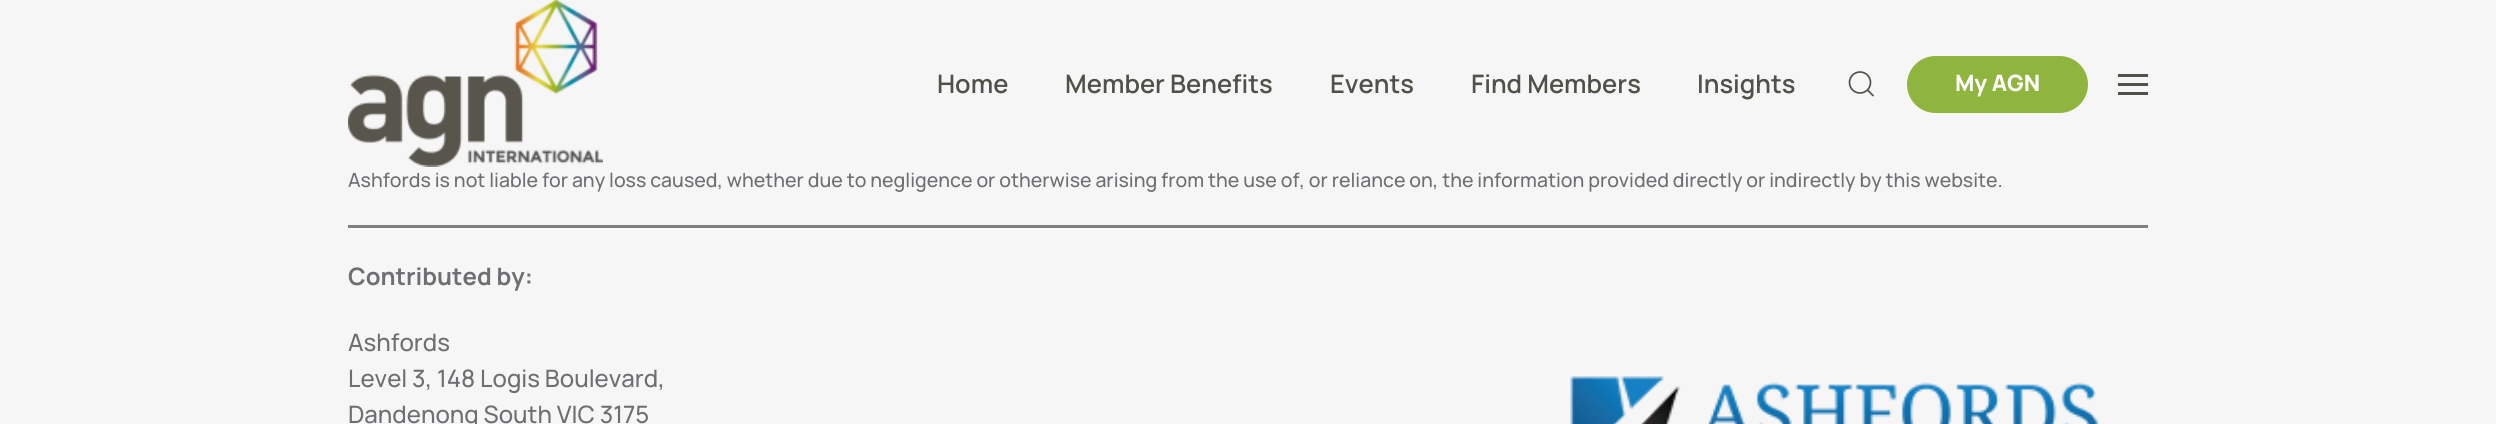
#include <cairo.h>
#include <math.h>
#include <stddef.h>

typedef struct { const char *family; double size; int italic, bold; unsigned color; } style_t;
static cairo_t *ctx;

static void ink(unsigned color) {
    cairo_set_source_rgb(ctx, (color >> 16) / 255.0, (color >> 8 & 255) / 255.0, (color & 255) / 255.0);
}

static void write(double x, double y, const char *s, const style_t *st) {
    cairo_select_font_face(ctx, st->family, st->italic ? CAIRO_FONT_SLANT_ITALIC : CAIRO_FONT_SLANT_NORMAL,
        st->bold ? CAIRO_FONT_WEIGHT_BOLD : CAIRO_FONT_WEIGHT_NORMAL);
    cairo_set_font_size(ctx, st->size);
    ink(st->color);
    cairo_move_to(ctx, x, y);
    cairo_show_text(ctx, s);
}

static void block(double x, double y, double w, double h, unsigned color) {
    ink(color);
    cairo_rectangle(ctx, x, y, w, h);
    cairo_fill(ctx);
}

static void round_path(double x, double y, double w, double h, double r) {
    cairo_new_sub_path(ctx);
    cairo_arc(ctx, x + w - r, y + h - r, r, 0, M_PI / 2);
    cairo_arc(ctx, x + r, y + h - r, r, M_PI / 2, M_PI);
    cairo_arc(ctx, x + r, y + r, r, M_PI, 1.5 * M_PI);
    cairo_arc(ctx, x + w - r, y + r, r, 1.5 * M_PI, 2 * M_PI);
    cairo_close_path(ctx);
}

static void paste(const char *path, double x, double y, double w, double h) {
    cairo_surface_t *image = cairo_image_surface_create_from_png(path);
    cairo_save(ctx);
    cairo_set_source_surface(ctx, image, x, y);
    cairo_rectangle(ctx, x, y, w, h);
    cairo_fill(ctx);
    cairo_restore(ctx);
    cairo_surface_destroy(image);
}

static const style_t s1 = {"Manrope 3 ExtraLight", 25.5, 0, 0, 0x525149};
static const style_t s2 = {"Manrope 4 ExtraLight", 22.5, 0, 0, 0xffffff};
static const style_t s3 = {"Manrope ExtraLight", 19.5, 0, 0, 0x6d6f72};
static const style_t s4 = {"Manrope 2 ExtraLight", 24, 0, 0, 0x6d6f72};
static const style_t s5 = {"Manrope ExtraLight", 24, 0, 0, 0x6d6f72};

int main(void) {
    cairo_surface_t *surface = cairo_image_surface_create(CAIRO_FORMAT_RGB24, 2496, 424);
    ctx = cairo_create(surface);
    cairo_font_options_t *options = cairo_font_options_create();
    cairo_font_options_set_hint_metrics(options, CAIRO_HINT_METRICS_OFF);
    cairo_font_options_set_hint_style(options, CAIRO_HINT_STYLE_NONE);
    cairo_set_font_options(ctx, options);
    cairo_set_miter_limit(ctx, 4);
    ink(0xf6f6f6);
    cairo_paint(ctx);
    paste("pic1.png", 348, 0, 255, 167);
    write(937, 93, "Home", &s1);
    write(1065, 93, "Member Benefits", &s1);
    write(1330, 93, "Events", &s1);
    write(1471, 93, "Find Members", &s1);
    write(1697, 93, "Insights", &s1);
    cairo_new_path(ctx);
    cairo_arc(ctx, 1860, 82.5, 10.5, 0, 2 * M_PI);
    cairo_set_line_width(ctx, 1.7);
    cairo_stroke(ctx);
    cairo_new_path(ctx);
    cairo_move_to(ctx, 1867.5, 90);
    cairo_line_to(ctx, 1873.5, 96);
    cairo_close_path(ctx);
    cairo_stroke(ctx);
    ink(0x8fb53e);
    round_path(1907, 56, 181, 57, 28.5);
    cairo_fill(ctx);
    write(1955, 91, "My AGN", &s2);
    block(2118, 74, 30, 3, 0x525149);
    block(2118, 83, 30, 3, 0x525149);
    block(2118, 92, 30, 3, 0x525149);
    write(348, 187, "Ashfords is not liable for any loss caused, whether due to negligence or otherwise arising from the use of, or reliance on, the information provided directly or indirectly by this website.", &s3);
    block(348, 228, 1800, 2, 0xfbfbfb);
    block(348, 225, 1800, 3, 0x808080);
    write(348, 285, "Contributed by:", &s4);
    write(348, 351, "Ashfords", &s5);
    write(348, 387, "Level 3, 148 Logis Boulevard,", &s5);
    write(348, 423, "Dandenong South VIC 3175", &s5);
    paste("pic2.png", 1570, 376, 529, 48);
    cairo_surface_write_to_png(surface, "screenshot.png");
    cairo_font_options_destroy(options);
    cairo_destroy(ctx);
    cairo_surface_destroy(surface);
    return 0;
}
